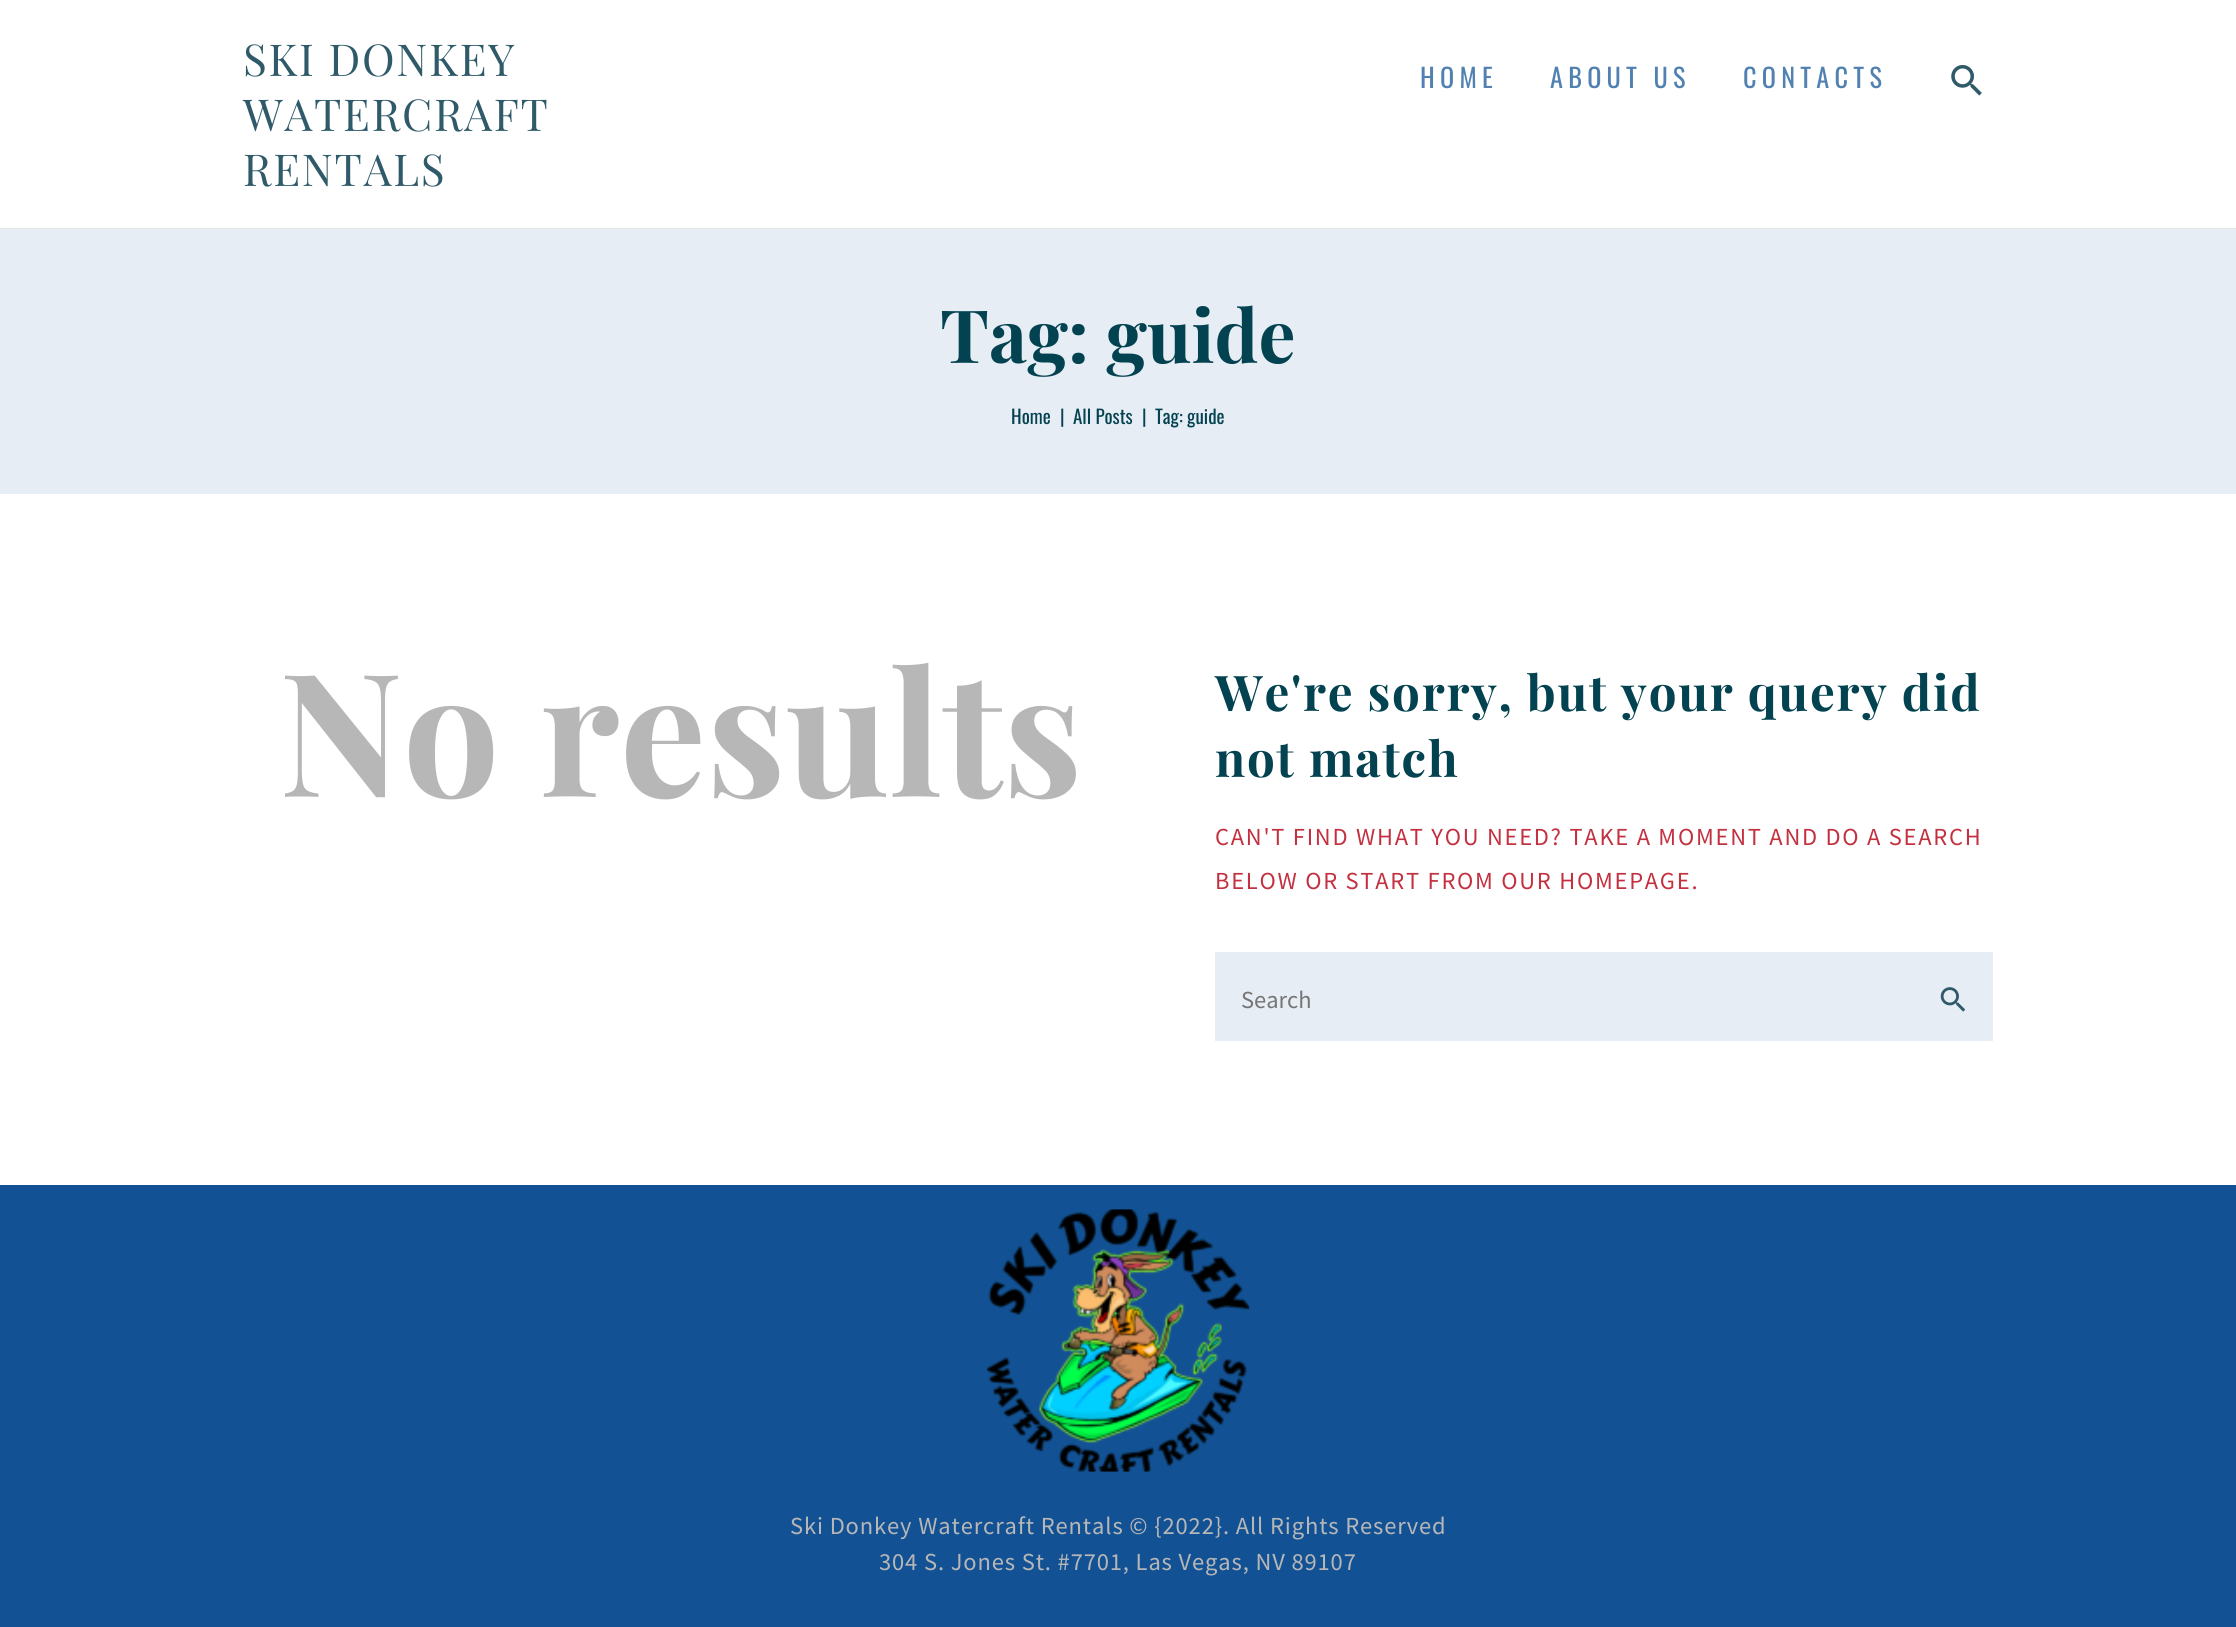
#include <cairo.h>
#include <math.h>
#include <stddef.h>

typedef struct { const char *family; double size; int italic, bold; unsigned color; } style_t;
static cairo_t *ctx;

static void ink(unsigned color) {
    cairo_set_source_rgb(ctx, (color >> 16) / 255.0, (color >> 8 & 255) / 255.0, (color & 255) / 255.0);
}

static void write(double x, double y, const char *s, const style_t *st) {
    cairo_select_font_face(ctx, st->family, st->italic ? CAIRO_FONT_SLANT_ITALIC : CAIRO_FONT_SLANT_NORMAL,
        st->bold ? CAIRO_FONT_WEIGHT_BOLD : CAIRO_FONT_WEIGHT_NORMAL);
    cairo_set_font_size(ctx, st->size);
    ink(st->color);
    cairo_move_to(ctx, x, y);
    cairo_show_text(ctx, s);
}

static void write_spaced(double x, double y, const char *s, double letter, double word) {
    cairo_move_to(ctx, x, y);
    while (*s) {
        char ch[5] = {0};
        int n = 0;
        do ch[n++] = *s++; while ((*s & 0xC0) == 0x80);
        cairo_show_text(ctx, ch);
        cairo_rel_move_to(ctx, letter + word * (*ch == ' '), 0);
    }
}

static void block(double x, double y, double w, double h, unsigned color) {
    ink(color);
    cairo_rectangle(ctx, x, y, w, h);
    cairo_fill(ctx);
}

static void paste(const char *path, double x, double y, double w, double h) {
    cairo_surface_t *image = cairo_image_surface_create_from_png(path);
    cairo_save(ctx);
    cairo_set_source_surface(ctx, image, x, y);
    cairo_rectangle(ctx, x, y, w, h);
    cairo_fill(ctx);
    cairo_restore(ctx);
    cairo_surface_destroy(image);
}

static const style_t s1 = {"Playfair Display", 73.5, 0, 1, 0x034250};
static const style_t s2 = {"Oswald", 19, 0, 0, 0x034250};
static const style_t s3 = {"Playfair Display", 171.5, 0, 1, 0xb7b7b7};
static const style_t s4 = {"Source Sans Pro", 24.5, 0, 0, 0x757575};

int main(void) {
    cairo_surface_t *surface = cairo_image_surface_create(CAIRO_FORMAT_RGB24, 2236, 1627);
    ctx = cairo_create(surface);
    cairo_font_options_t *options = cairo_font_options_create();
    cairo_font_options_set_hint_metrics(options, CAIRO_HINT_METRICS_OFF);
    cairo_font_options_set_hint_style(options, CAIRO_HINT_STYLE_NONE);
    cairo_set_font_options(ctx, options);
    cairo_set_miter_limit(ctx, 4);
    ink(0xffffff);
    cairo_paint(ctx);
    block(0, 228, 2236, 1, 0xe5e5e5);
    cairo_select_font_face(ctx, "Playfair Display", CAIRO_FONT_SLANT_NORMAL, CAIRO_FONT_WEIGHT_NORMAL);
    cairo_set_font_size(ctx, 44);
    ink(0x2f5a69);
    write_spaced(243, 76, "SKI DONKEY", 1.75, 0);
    write_spaced(243, 131, "WATERCRAFT", 1.75, 0);
    write_spaced(243, 186, "RENTALS", 1.75, 0);
    cairo_select_font_face(ctx, "Oswald", CAIRO_FONT_SLANT_NORMAL, CAIRO_FONT_WEIGHT_NORMAL);
    cairo_set_font_size(ctx, 26.25);
    ink(0x5181b0);
    write_spaced(1420, 88, "HOME", 5.25, 0);
    write_spaced(1550, 88, "ABOUT US", 5.25, 0);
    write_spaced(1743, 88, "CONTACTS", 5.25, 0);
    paste("pic1.png", 1951, 65, 31, 31);
    block(0, 229, 2236, 265, 0xe7edf4);
    write(940, 363, "Tag: guide", &s1);
    write(1011, 424, "Home", &s2);
    write(1060, 424, "|", &s2);
    write(1073, 424, "All Posts", &s2);
    write(1142, 424, "|", &s2);
    write(1155, 424, "Tag: guide", &s2);
    write(279, 797, "No results", &s3);
    cairo_set_font_size(ctx, 49.25);
    ink(0x034250);
    write_spaced(1215, 711, "We're sorry, but your query did", 1.75, 0);
    write_spaced(1215, 777, "not match", 1.75, 0);
    cairo_select_font_face(ctx, "Source Sans Pro", CAIRO_FONT_SLANT_NORMAL, CAIRO_FONT_WEIGHT_NORMAL);
    cairo_set_font_size(ctx, 24.5);
    ink(0xc33040);
    write_spaced(1215, 845, "CAN'T FIND WHAT YOU NEED? TAKE A MOMENT AND DO A SEARCH", 1.75, 0);
    write_spaced(1215, 889, "BELOW OR START FROM OUR HOMEPAGE.", 1.75, 0);
    block(1215, 952, 778, 89, 0xe7edf4);
    write(1241, 1008, "Search", &s4);
    paste("pic2.png", 1940, 987, 26, 25);
    block(0, 1185, 2236, 442, 0x125294);
    paste("pic3.png", 987, 1209, 263, 263);
    ink(0xb7b7b7);
    write_spaced(790, 1534, "Ski Donkey Watercraft Rentals © {2022}. All Rights Reserved", 0.88, 0);
    write_spaced(879, 1570, "304 S. Jones St. #7701, Las Vegas, NV 89107", 0.88, 0);
    cairo_surface_write_to_png(surface, "screenshot.png");
    cairo_font_options_destroy(options);
    cairo_destroy(ctx);
    cairo_surface_destroy(surface);
    return 0;
}
